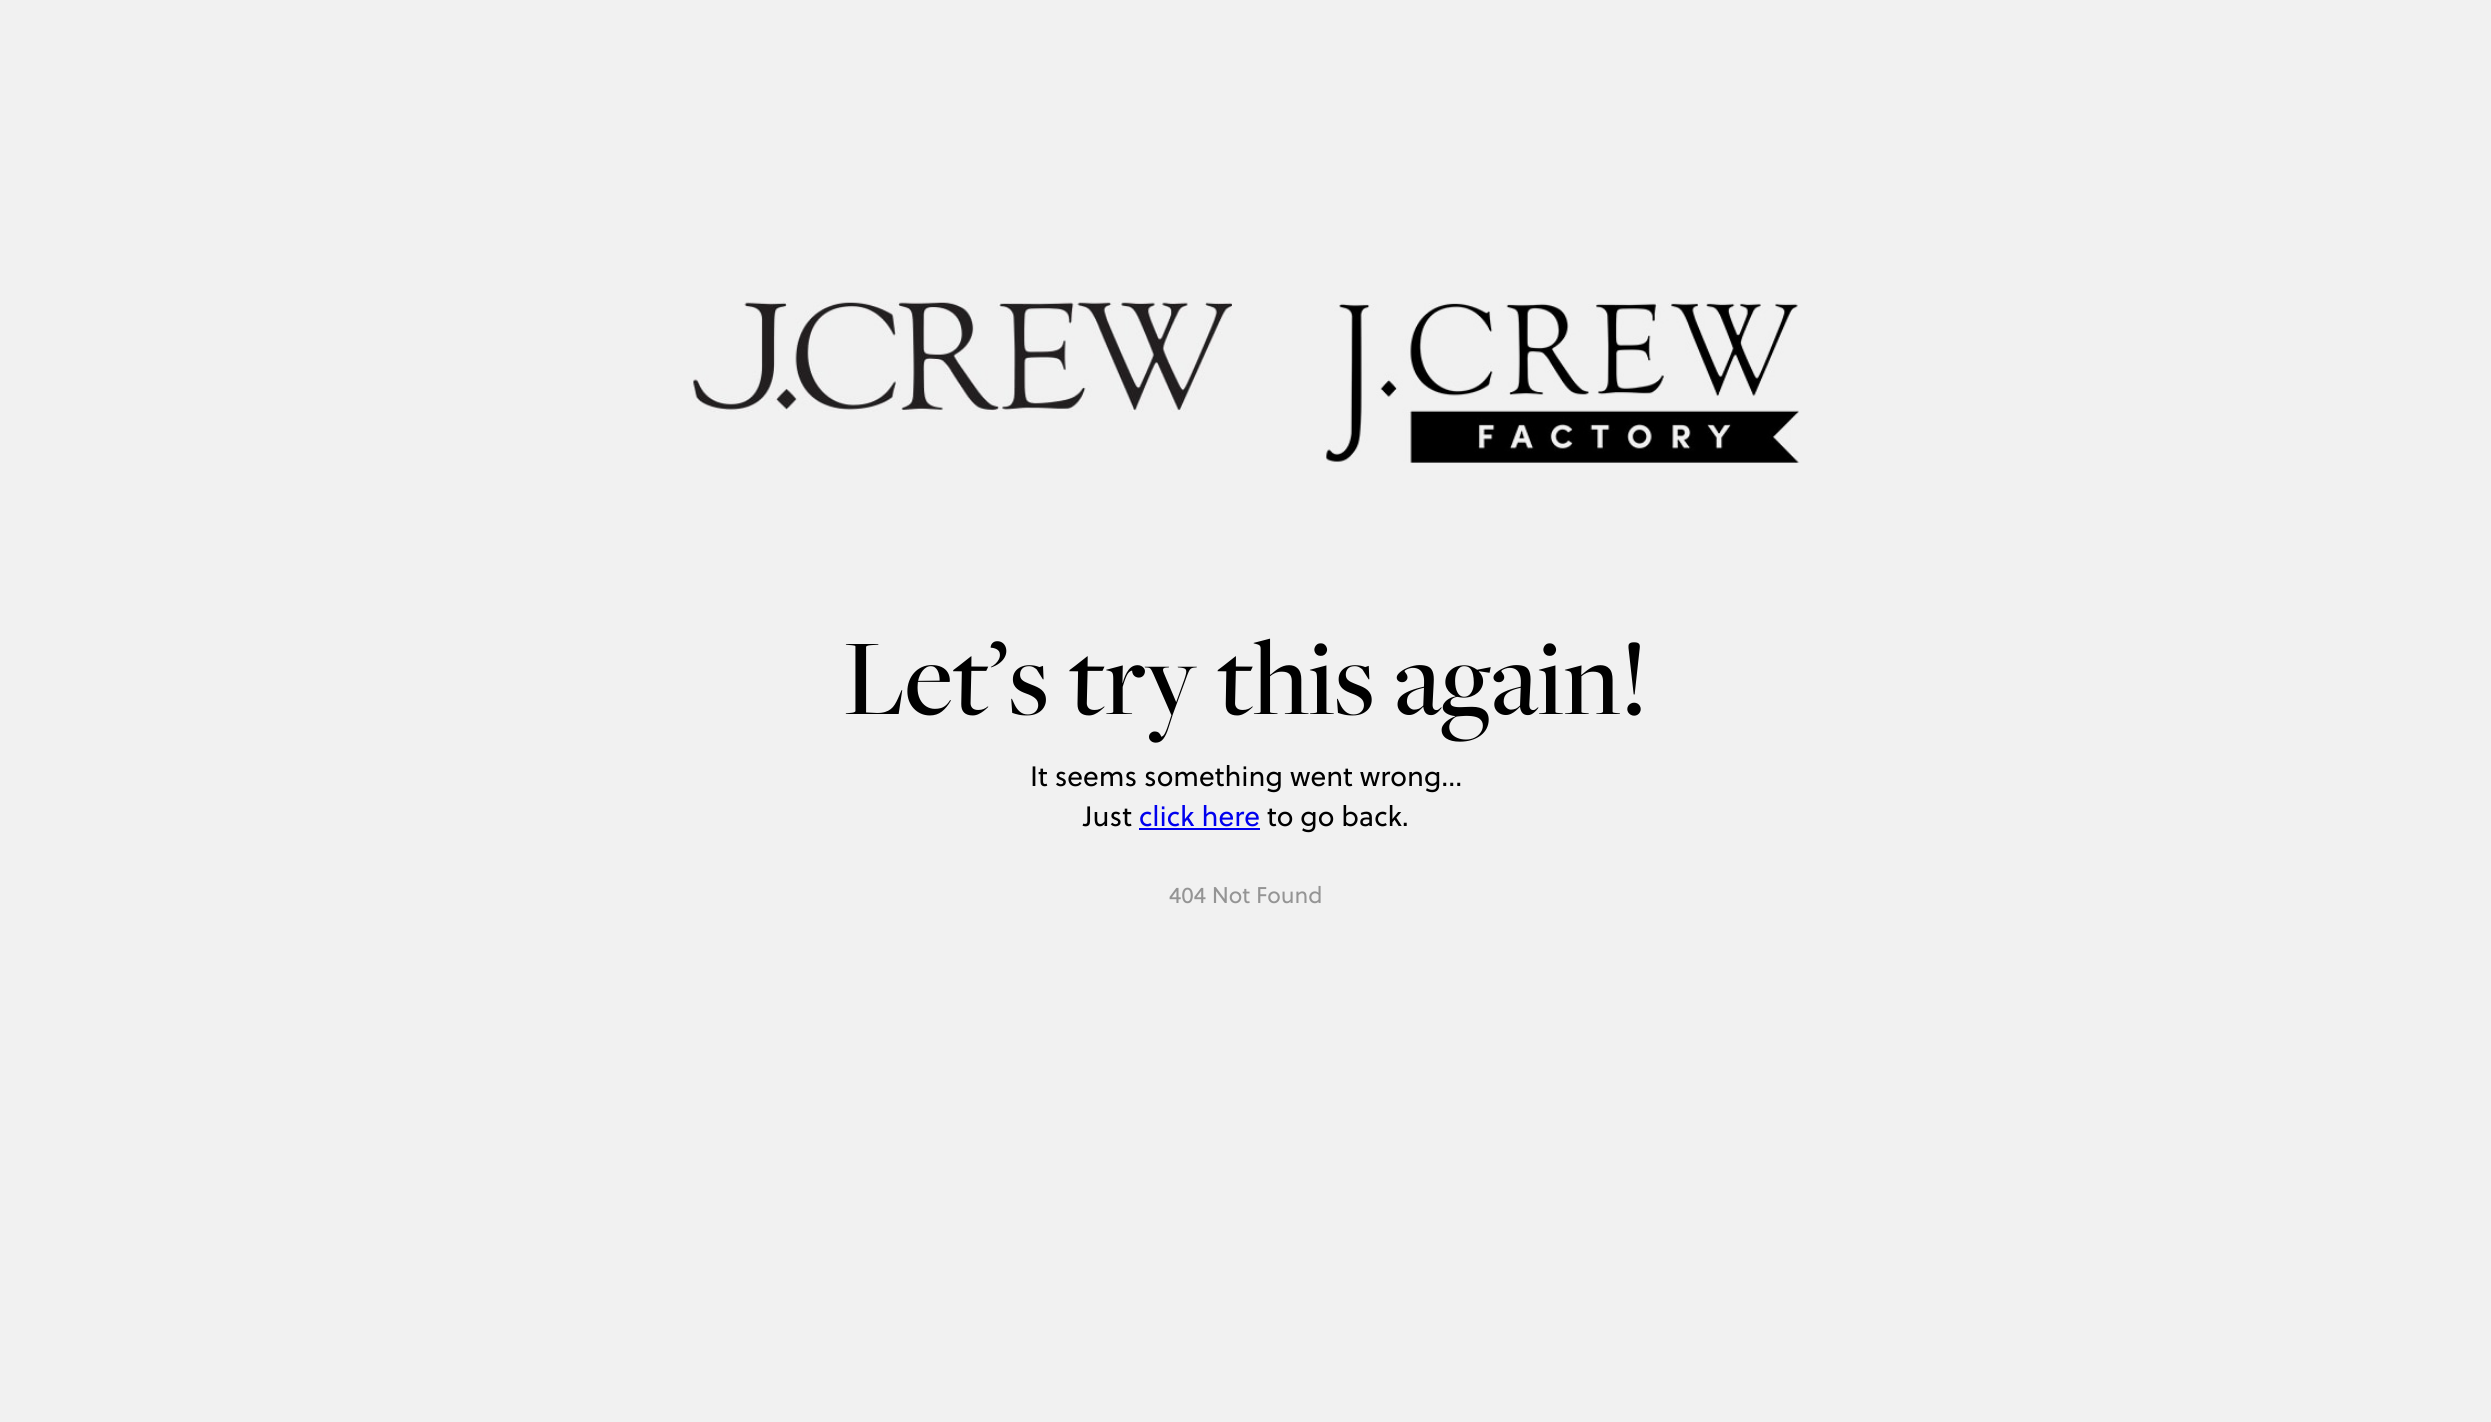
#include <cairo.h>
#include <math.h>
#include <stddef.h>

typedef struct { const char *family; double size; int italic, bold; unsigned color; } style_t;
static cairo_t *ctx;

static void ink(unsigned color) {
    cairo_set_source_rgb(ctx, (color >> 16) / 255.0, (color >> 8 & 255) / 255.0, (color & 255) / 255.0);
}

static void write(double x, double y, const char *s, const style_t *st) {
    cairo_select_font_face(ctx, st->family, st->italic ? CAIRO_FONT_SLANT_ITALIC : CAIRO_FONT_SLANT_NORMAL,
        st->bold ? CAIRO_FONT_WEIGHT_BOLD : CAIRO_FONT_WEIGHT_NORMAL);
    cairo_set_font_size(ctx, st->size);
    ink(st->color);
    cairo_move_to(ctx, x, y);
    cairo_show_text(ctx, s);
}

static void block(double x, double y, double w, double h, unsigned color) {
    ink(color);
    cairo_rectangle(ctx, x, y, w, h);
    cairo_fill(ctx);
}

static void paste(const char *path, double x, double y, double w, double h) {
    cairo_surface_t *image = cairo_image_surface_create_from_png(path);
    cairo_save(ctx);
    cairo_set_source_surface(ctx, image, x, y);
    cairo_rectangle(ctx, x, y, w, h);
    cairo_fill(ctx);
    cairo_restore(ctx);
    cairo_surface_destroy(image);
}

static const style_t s1 = {"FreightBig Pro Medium", 112, 0, 0, 0x000000};
static const style_t s2 = {"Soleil", 28, 0, 0, 0x000000};
static const style_t s3 = {"Soleil", 28, 0, 0, 0x0000ee};
static const style_t s4 = {"Soleil", 22.75, 0, 0, 0x949494};

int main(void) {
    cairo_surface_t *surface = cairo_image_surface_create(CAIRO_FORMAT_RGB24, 2491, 1422);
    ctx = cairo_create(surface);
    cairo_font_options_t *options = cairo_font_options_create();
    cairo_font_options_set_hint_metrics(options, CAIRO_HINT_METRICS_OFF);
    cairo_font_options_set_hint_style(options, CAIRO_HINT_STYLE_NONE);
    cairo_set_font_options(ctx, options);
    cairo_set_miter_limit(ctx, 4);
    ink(0xf1f1f1);
    cairo_paint(ctx);
    paste("pic1.png", 691, 301, 541, 111);
    paste("pic2.png", 1324, 303, 476, 160);
    write(843, 714, "Let’s try this again!", &s1);
    write(1030, 786, "It seems something went wrong…", &s2);
    write(1083, 826, "Just", &s2);
    write(1139, 826, "click here", &s3);
    block(1139, 828, 121, 2, 0x0000ee);
    write(1267, 826, "to go back.", &s2);
    write(1169, 903, "404 Not Found", &s4);
    cairo_surface_write_to_png(surface, "screenshot.png");
    cairo_font_options_destroy(options);
    cairo_destroy(ctx);
    cairo_surface_destroy(surface);
    return 0;
}
